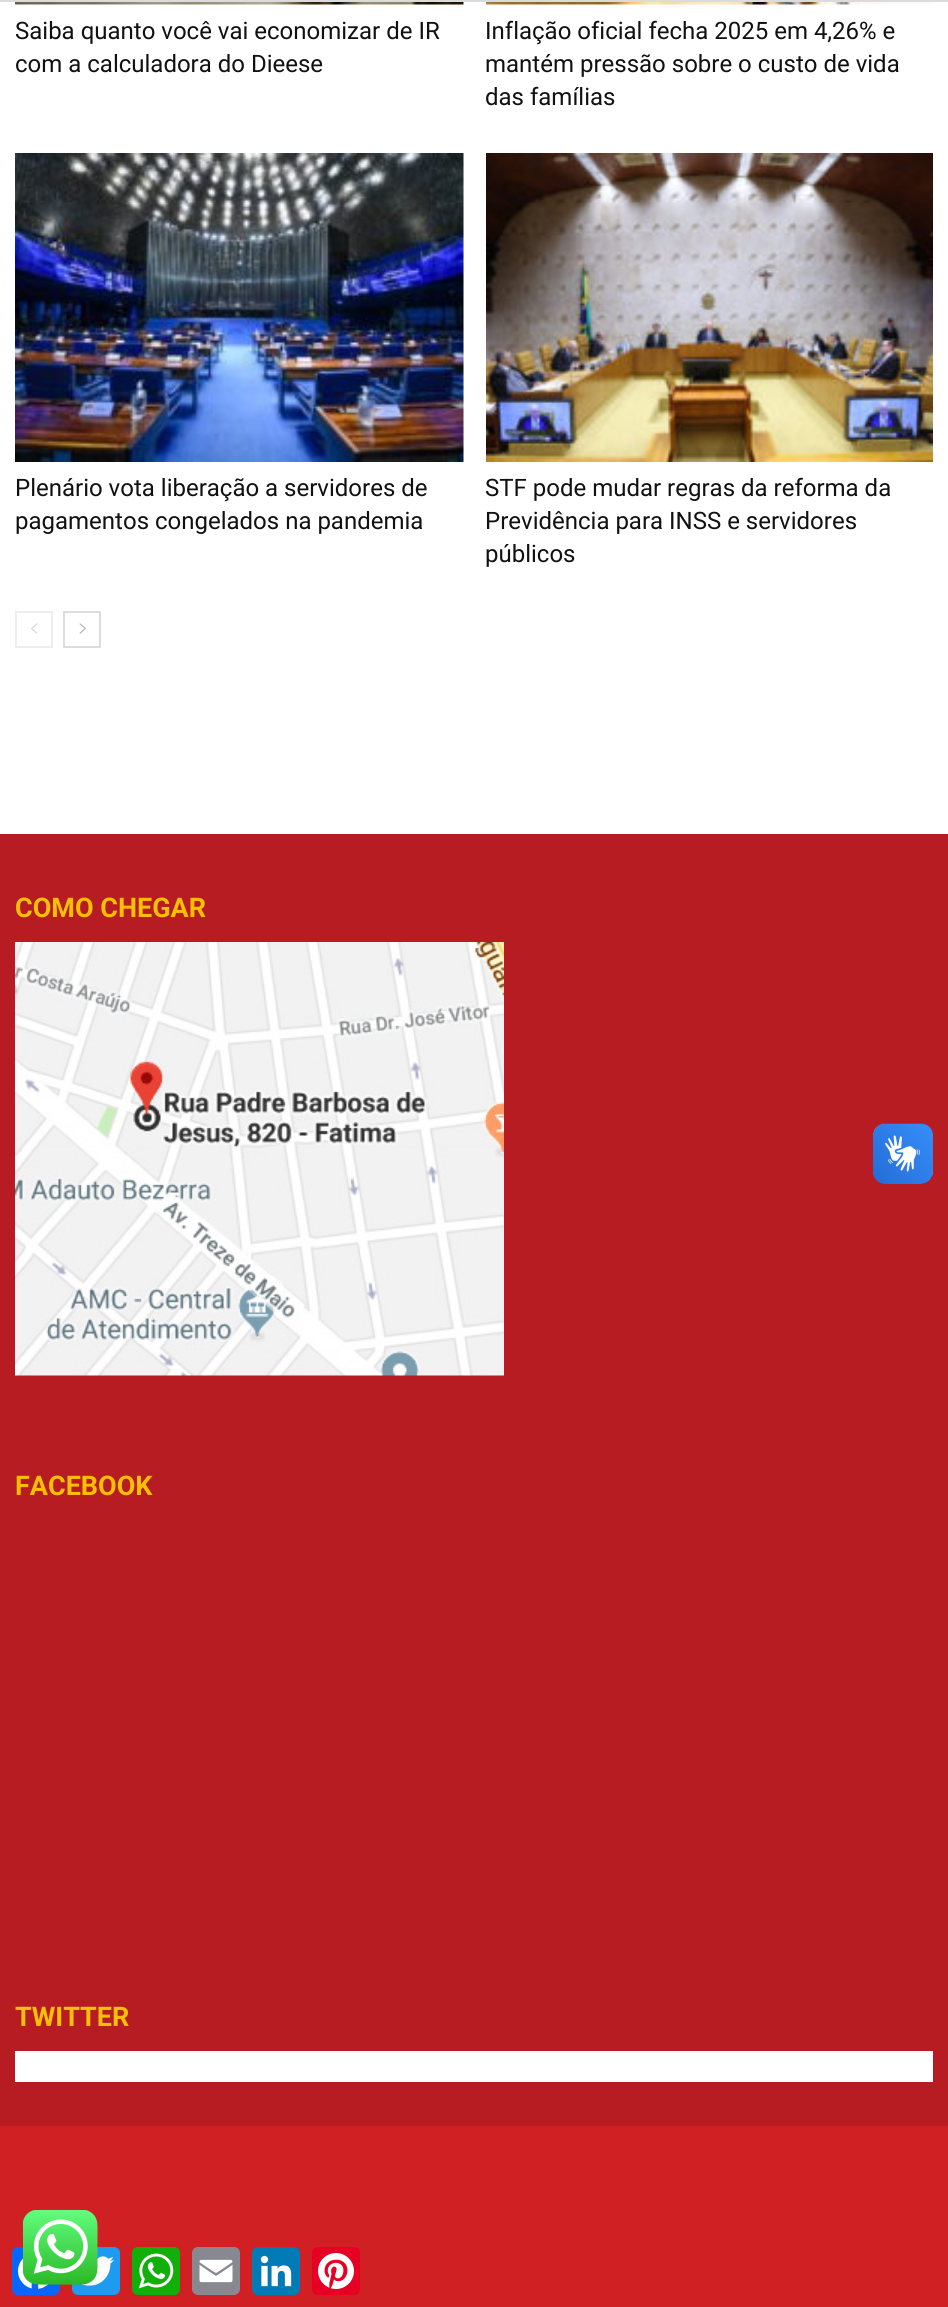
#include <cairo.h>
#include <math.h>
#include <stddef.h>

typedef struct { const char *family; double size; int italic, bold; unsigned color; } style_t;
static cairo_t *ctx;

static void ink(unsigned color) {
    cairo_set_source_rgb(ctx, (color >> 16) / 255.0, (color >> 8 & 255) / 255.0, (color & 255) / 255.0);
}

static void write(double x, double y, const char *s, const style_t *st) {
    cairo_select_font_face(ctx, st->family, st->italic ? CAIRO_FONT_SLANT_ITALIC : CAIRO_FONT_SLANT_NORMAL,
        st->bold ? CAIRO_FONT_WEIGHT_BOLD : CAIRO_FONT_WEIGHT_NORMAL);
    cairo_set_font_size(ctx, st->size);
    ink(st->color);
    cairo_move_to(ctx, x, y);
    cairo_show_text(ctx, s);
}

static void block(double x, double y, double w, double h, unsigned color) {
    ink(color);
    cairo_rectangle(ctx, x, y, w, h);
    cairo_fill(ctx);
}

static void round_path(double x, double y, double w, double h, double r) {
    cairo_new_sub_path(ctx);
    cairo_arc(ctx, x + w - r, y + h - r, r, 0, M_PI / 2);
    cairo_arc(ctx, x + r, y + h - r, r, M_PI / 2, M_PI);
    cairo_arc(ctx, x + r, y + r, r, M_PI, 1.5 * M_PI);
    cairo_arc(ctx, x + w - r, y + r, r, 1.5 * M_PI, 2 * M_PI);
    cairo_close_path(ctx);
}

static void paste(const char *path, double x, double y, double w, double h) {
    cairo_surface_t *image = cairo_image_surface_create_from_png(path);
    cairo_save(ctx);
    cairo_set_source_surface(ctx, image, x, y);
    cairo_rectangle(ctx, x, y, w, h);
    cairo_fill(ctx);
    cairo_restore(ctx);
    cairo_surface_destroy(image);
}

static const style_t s1 = {"Roboto", 24, 0, 0, 0x111111};
static const style_t s2 = {"Roboto", 27, 0, 1, 0xf9bf05};

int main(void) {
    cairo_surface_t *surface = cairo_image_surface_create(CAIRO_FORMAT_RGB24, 948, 2307);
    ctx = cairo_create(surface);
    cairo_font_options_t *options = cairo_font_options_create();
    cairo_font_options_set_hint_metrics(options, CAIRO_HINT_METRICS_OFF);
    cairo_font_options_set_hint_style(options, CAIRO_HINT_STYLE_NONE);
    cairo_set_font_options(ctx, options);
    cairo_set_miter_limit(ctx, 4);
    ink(0xffffff);
    cairo_paint(ctx);
    block(0, 0, 948, 2, 0xdbdbdb);
    paste("pic1.png", 15, 2, 449, 3);
    write(15, 39, "Saiba quanto você vai economizar de IR", &s1);
    write(15, 72, "com a calculadora do Dieese", &s1);
    paste("pic2.png", 486, 2, 447, 3);
    write(485, 39, "Inflação oficial fecha 2025 em 4,26% e", &s1);
    write(485, 72, "mantém pressão sobre o custo de vida", &s1);
    write(485, 105, "das famílias", &s1);
    paste("pic3.png", 15, 153, 449, 309);
    write(15, 496, "Plenário vota liberação a servidores de", &s1);
    write(15, 529, "pagamentos congelados na pandemia", &s1);
    paste("pic4.png", 486, 153, 447, 309);
    write(485, 496, "STF pode mudar regras da reforma da", &s1);
    write(485, 529, "Previdência para INSS e servidores", &s1);
    write(485, 562, "públicos", &s1);
    cairo_rectangle(ctx, 16, 612, 36, 35);
    ink(0xeeeeee);
    cairo_stroke(ctx);
    paste("pic5.png", 31, 623, 7, 11);
    cairo_rectangle(ctx, 64, 612, 36, 35);
    ink(0xdcdcdc);
    cairo_stroke(ctx);
    paste("pic6.png", 79, 623, 7, 11);
    block(0, 834, 948, 1292, 0xb61c21);
    write(15, 917, "COMO CHEGAR", &s2);
    paste("pic7.png", 15, 942, 489, 434);
    write(15, 1495, "FACEBOOK", &s2);
    write(15, 2026, "TWITTER", &s2);
    block(15, 2051, 918, 31, 0xffffff);
    block(0, 2126, 948, 181, 0xd02024);
    paste("pic8.png", 873, 1123, 60, 61);
    paste("pic9.png", 873, 1124, 60, 60);
    ink(0x0866ff);
    round_path(12, 2247, 48, 48, 6);
    cairo_fill(ctx);
    paste("pic11.png", 18, 2258, 31, 31);
    ink(0x1d9bf0);
    round_path(72, 2247, 48, 48, 6);
    cairo_fill(ctx);
    paste("pic12.png", 81, 2256, 33, 30);
    paste("pic10.png", 23, 2210, 75, 75);
    ink(0x12af0a);
    round_path(132, 2247, 48, 48, 6);
    cairo_fill(ctx);
    paste("pic13.png", 138, 2253, 36, 36);
    ink(0x888990);
    round_path(192, 2247, 48, 48, 6);
    cairo_fill(ctx);
    paste("pic14.png", 199, 2259, 34, 24);
    ink(0x007bb5);
    round_path(252, 2247, 48, 48, 6);
    cairo_fill(ctx);
    paste("pic15.png", 260, 2255, 32, 32);
    ink(0xe60023);
    round_path(312, 2247, 48, 48, 6);
    cairo_fill(ctx);
    paste("pic16.png", 318, 2253, 36, 36);
    cairo_surface_write_to_png(surface, "screenshot.png");
    cairo_font_options_destroy(options);
    cairo_destroy(ctx);
    cairo_surface_destroy(surface);
    return 0;
}
